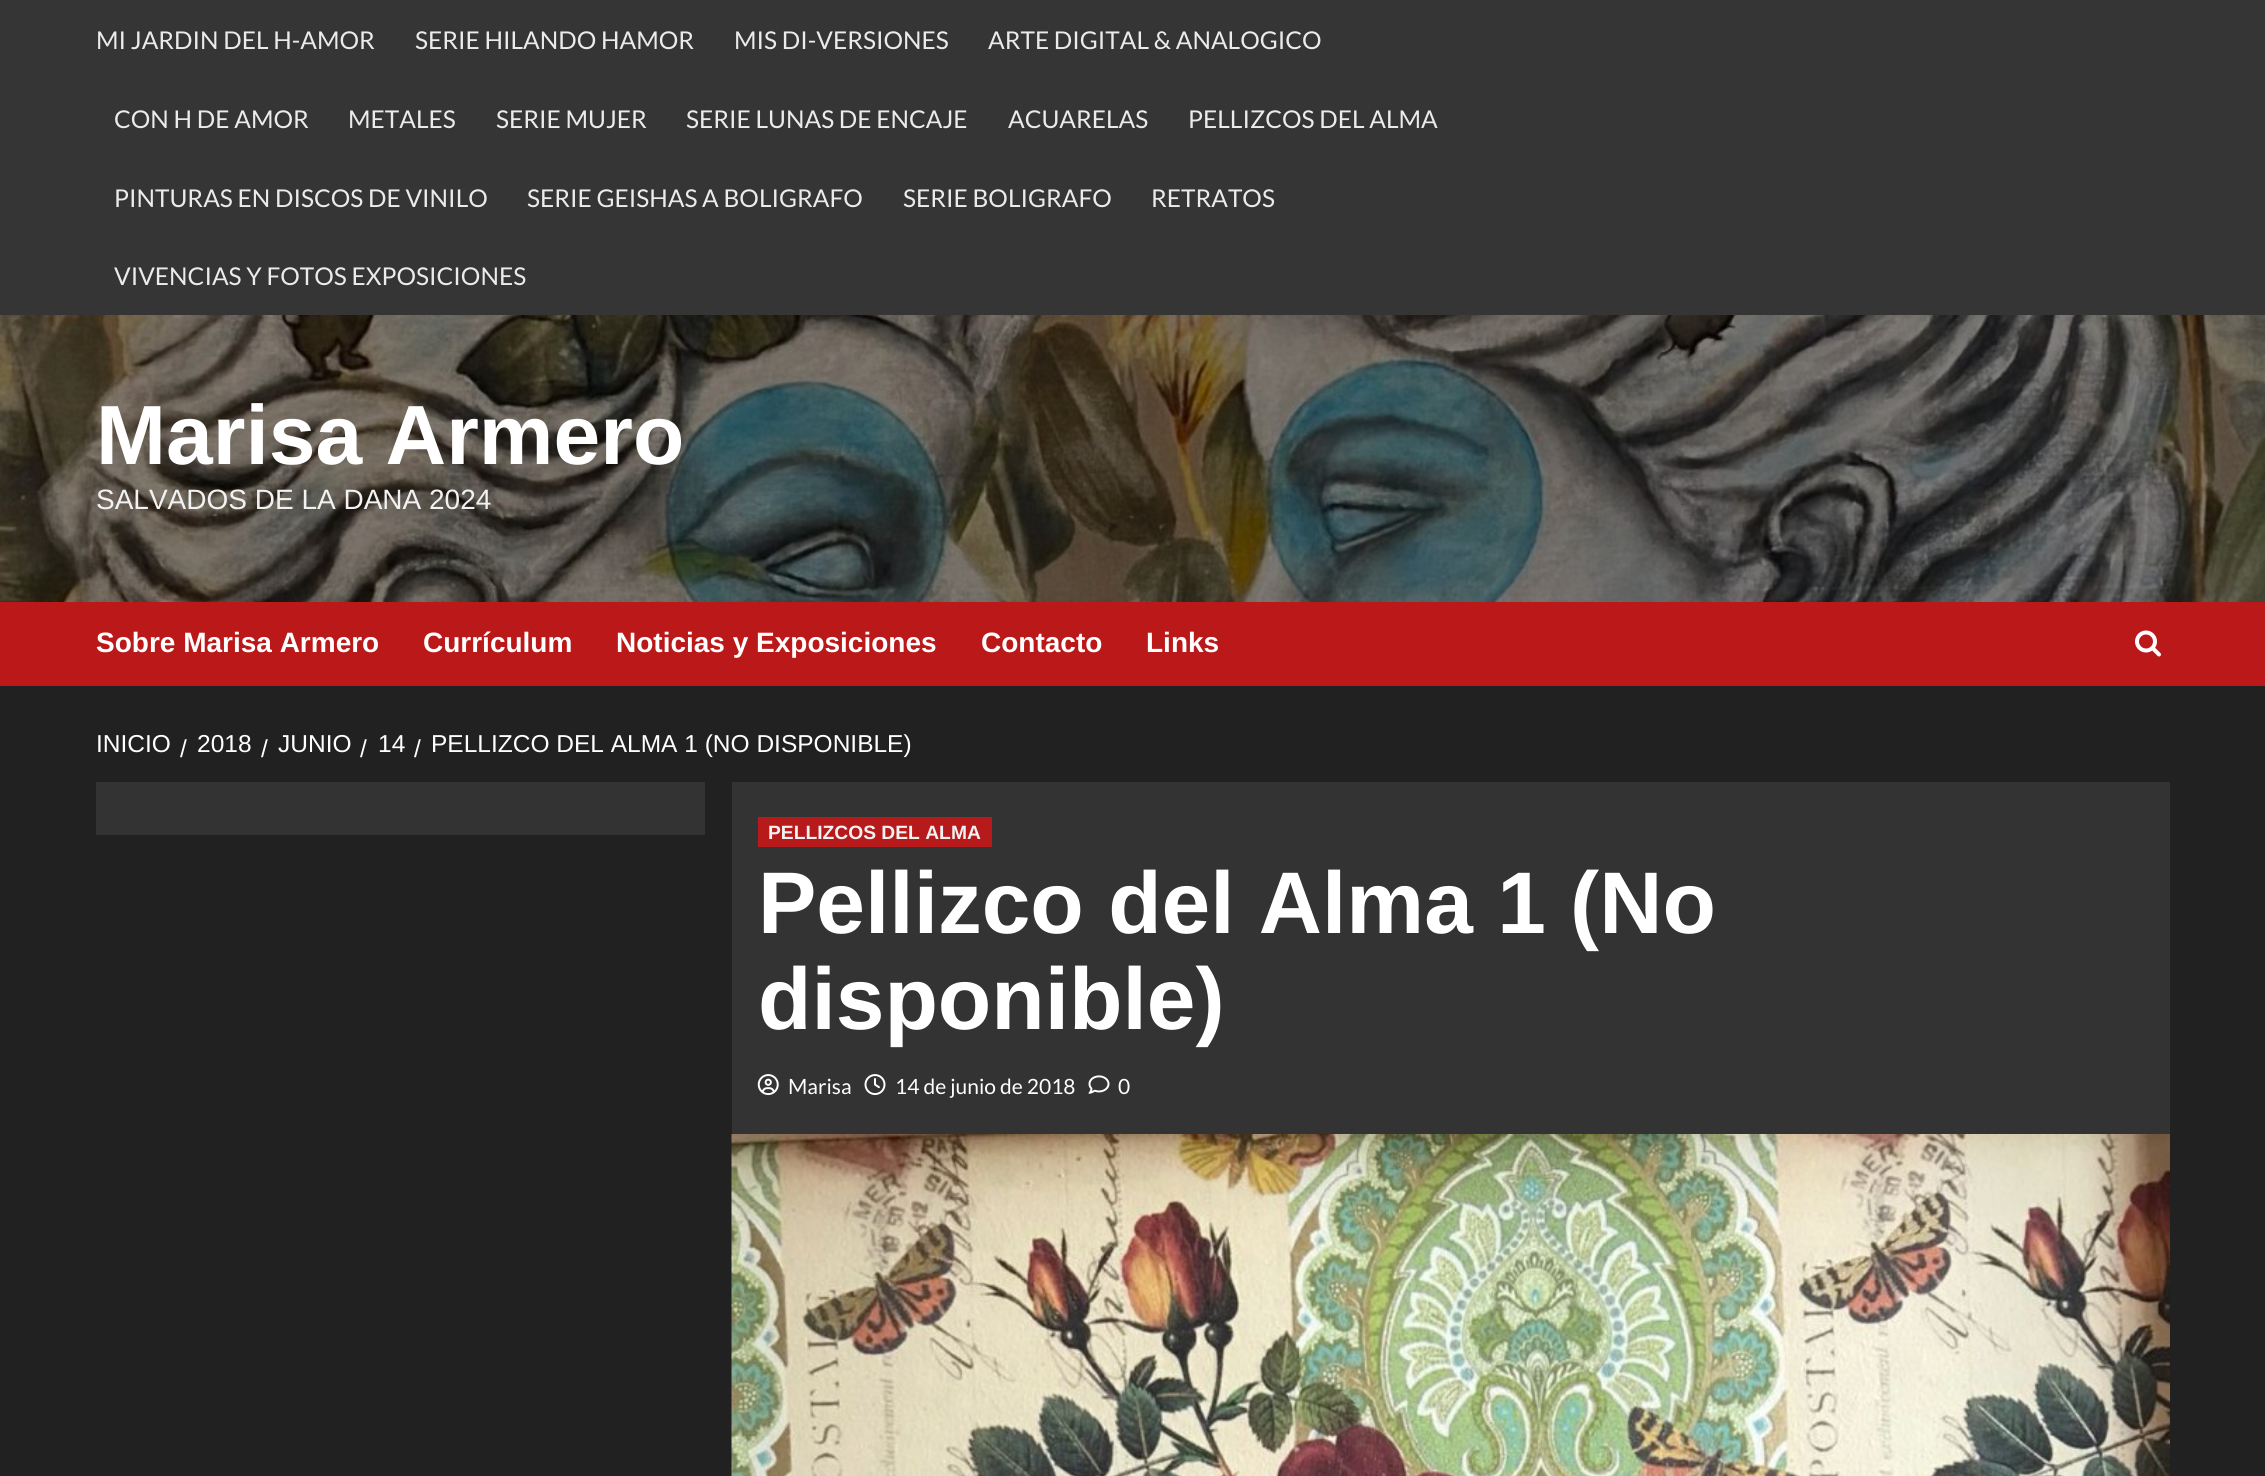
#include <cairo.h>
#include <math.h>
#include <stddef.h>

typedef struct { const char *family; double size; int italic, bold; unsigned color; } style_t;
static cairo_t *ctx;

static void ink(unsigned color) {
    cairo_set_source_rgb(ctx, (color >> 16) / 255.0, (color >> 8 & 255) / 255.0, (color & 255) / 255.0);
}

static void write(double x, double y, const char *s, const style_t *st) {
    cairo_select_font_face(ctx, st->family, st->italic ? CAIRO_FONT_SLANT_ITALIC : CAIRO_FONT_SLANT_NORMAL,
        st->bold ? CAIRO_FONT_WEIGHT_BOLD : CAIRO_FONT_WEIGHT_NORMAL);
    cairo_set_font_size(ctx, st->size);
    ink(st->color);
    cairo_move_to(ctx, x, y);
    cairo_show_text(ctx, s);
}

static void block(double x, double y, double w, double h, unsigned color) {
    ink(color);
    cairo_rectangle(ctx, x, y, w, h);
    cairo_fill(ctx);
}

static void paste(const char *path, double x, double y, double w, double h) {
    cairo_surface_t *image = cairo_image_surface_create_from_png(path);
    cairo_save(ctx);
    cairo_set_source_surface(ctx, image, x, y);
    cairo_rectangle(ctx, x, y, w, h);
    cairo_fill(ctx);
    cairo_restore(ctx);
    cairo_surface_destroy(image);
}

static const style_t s1 = {"Lato", 24.5, 0, 0, 0xebebeb};
static const style_t s2 = {"Liberation Sans", 84, 0, 1, 0xffffff};
static const style_t s3 = {"Liberation Sans", 28, 0, 0, 0xf2f2f2};
static const style_t s4 = {"Liberation Sans", 28, 0, 1, 0xffffff};
static const style_t s5 = {"Liberation Sans", 24.5, 0, 0, 0xffffff};
static const style_t s6 = {"Liberation Sans", 19.25, 0, 1, 0xf2f2f2};
static const style_t s7 = {"Liberation Sans", 87.5, 0, 1, 0xffffff};
static const style_t s8 = {"Lato", 21, 0, 0, 0xffffff};

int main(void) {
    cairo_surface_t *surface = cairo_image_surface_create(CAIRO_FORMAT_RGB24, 2265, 1476);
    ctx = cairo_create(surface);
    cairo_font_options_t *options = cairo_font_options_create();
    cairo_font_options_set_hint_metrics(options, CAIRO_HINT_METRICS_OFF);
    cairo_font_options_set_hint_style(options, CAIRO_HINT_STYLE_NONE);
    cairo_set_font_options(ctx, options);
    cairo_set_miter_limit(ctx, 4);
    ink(0x212121);
    cairo_paint(ctx);
    block(0, 0, 2265, 315, 0x353535);
    write(96, 49, "MI JARDIN DEL H-AMOR", &s1);
    write(415, 49, "SERIE HILANDO HAMOR", &s1);
    write(734, 49, "MIS DI-VERSIONES", &s1);
    write(988, 49, "ARTE DIGITAL & ANALOGICO", &s1);
    write(114, 128, "CON H DE AMOR", &s1);
    write(348, 128, "METALES", &s1);
    write(496, 128, "SERIE MUJER", &s1);
    write(686, 128, "SERIE LUNAS DE ENCAJE", &s1);
    write(1008, 128, "ACUARELAS", &s1);
    write(1188, 128, "PELLIZCOS DEL ALMA", &s1);
    write(114, 207, "PINTURAS EN DISCOS DE VINILO", &s1);
    write(527, 207, "SERIE GEISHAS A BOLIGRAFO", &s1);
    write(903, 207, "SERIE BOLIGRAFO", &s1);
    write(1151, 207, "RETRATOS", &s1);
    write(114, 285, "VIVENCIAS Y FOTOS EXPOSICIONES", &s1);
    paste("pic1.png", 0, 315, 2265, 287);
    write(96, 464, "Marisa Armero", &s2);
    write(96, 509, "SALVADOS DE LA DANA 2024", &s3);
    block(0, 602, 2265, 84, 0xbb1919);
    write(96, 652, "Sobre Marisa Armero", &s4);
    write(423, 652, "Currículum", &s4);
    write(616, 652, "Noticias y Exposiciones", &s4);
    write(981, 652, "Contacto", &s4);
    write(1146, 652, "Links", &s4);
    paste("pic2.png", 2135, 630, 26, 27);
    write(96, 752, "INICIO", &s5);
    write(180, 757, "/", &s5);
    write(197, 752, "2018", &s5);
    write(261, 757, "/", &s5);
    write(278, 752, "JUNIO", &s5);
    write(360, 757, "/", &s5);
    write(378, 752, "14", &s5);
    write(414, 757, "/", &s5);
    write(431, 752, "PELLIZCO DEL ALMA 1 (NO DISPONIBLE)", &s5);
    block(96, 782, 609, 53, 0x333333);
    block(732, 782, 1438, 352, 0x333333);
    block(758, 817, 234, 30, 0xb61a1a);
    write(768, 839, "PELLIZCOS DEL ALMA", &s6);
    write(758, 933, "Pellizco del Alma 1 (No", &s7);
    write(758, 1029, "disponible)", &s7);
    paste("pic3.png", 757, 1074, 22, 22);
    write(788, 1094, "Marisa", &s8);
    paste("pic4.png", 864, 1074, 22, 21);
    write(895, 1094, "14 de junio de 2018", &s8);
    paste("pic5.png", 1088, 1075, 22, 19);
    write(1118, 1094, "0", &s8);
    paste("pic6.png", 731, 1134, 1439, 342);
    cairo_surface_write_to_png(surface, "screenshot.png");
    cairo_font_options_destroy(options);
    cairo_destroy(ctx);
    cairo_surface_destroy(surface);
    return 0;
}
